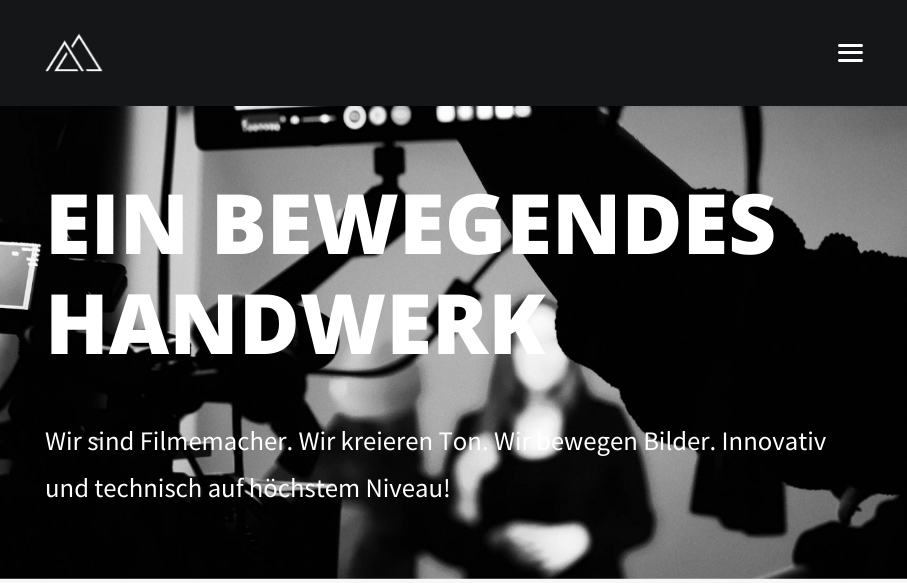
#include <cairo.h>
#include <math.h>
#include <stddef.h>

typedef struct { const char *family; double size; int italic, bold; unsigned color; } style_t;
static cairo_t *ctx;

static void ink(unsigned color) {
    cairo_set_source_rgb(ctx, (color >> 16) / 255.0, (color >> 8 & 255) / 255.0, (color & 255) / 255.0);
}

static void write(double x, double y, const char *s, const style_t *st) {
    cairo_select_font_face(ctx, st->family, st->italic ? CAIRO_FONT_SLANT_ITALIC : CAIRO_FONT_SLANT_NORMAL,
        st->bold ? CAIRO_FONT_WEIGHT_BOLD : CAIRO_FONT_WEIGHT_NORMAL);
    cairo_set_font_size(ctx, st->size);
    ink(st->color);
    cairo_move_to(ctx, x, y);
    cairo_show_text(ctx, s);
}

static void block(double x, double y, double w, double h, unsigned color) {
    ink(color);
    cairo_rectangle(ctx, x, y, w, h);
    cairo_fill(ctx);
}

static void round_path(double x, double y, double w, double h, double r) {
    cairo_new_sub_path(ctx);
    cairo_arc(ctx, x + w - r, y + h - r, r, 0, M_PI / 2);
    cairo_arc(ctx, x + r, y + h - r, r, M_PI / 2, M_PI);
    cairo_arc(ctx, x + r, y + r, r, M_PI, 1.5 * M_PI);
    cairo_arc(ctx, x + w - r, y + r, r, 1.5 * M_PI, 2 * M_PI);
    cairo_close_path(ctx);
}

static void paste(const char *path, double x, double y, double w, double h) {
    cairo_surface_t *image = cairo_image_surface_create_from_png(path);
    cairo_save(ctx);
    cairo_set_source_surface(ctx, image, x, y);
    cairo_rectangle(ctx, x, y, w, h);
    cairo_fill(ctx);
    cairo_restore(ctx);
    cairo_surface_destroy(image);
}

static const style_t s1 = {"Open Sans ExtraBold", 83.25, 0, 0, 0xffffff};
static const style_t s2 = {"Source Sans Pro", 26.7, 0, 0, 0xffffff};

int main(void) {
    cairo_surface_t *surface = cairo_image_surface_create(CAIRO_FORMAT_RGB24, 907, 583);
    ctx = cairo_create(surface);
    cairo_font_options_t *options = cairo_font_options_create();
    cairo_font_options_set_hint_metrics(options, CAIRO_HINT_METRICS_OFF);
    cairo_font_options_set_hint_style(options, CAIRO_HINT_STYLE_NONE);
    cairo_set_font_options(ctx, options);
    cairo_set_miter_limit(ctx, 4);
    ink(0xffffff);
    cairo_paint(ctx);
    block(0, 0, 907, 106, 0x141618);
    paste("pic1.png", 45, 33, 58, 39);
    ink(0xffffff);
    round_path(838, 51, 25, 3, 1.5);
    cairo_fill(ctx);
    round_path(838, 44, 25, 3, 1.5);
    cairo_fill(ctx);
    round_path(838, 59, 25, 3, 1.5);
    cairo_fill(ctx);
    paste("pic2.png", 0, 106, 907, 473);
    write(45, 254, "EIN BEWEGENDES", &s1);
    write(45, 354, "HANDWERK", &s1);
    write(45, 450, "Wir sind Filmemacher. Wir kreieren Ton. Wir bewegen Bilder. Innovativ", &s2);
    write(45, 497, "und technisch auf höchstem Niveau!", &s2);
    block(0, 579, 907, 4, 0xf7f7f7);
    cairo_surface_write_to_png(surface, "screenshot.png");
    cairo_font_options_destroy(options);
    cairo_destroy(ctx);
    cairo_surface_destroy(surface);
    return 0;
}
